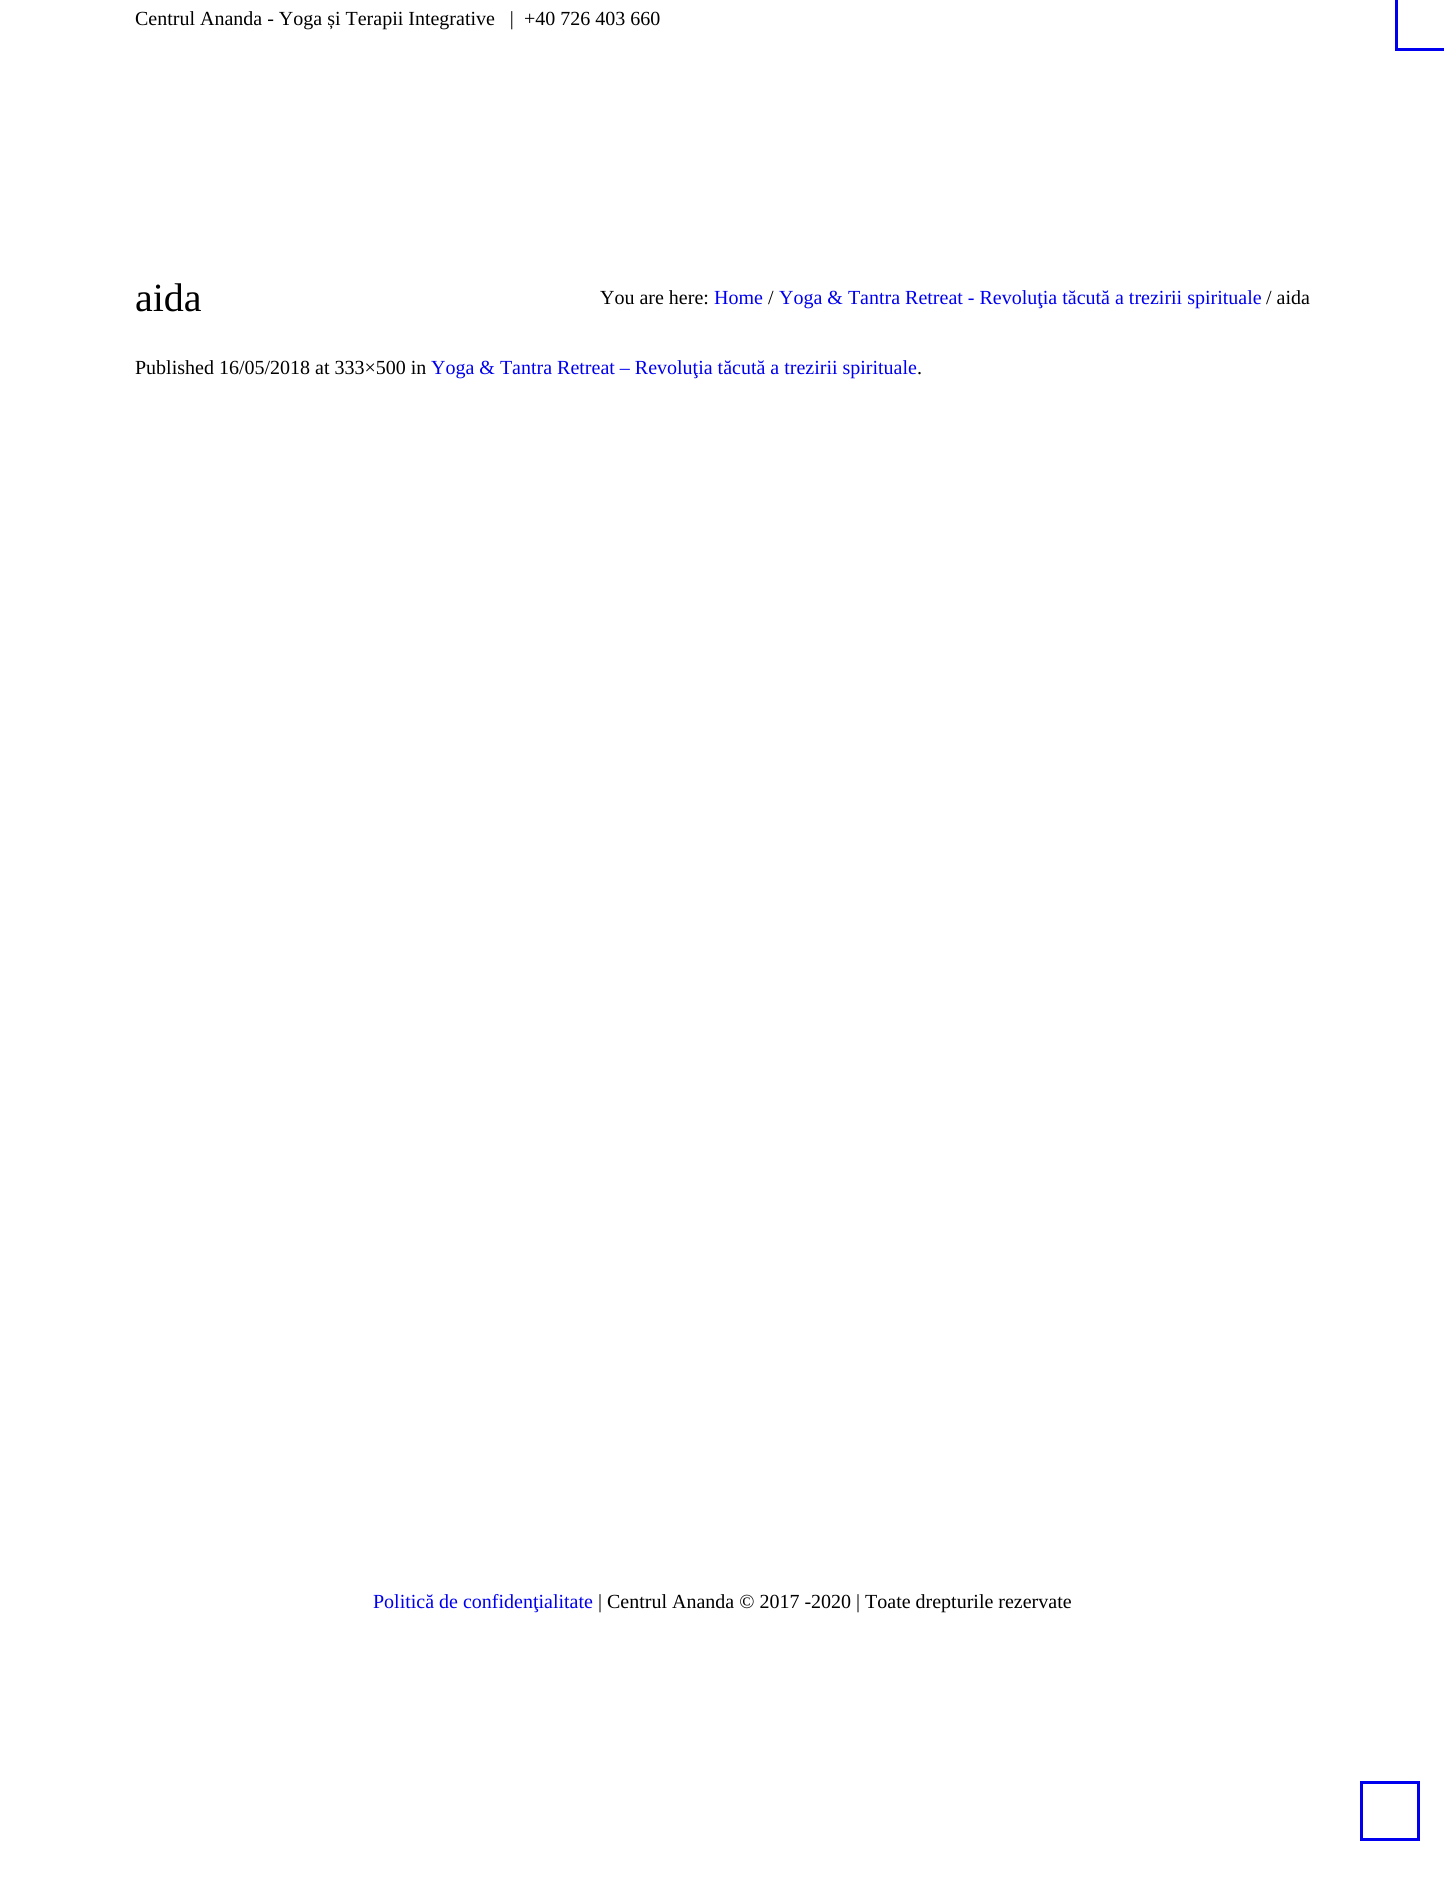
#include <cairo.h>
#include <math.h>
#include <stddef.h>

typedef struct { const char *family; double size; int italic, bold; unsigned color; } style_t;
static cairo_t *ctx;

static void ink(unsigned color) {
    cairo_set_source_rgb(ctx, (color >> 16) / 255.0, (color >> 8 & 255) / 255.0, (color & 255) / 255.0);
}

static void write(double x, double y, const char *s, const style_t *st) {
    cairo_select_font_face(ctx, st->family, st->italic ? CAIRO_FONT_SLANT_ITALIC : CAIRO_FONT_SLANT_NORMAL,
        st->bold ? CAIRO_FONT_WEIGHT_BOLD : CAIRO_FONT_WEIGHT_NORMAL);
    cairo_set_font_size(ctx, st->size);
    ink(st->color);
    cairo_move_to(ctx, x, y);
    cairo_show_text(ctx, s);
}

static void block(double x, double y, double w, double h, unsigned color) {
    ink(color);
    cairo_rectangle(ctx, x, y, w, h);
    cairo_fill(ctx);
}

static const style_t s1 = {"Liberation Serif", 20, 0, 0, 0x000000};
static const style_t s2 = {"Liberation Serif", 40, 0, 0, 0x000000};
static const style_t s3 = {"Liberation Serif", 20, 0, 0, 0x0000ee};

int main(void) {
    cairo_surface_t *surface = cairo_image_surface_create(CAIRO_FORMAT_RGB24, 1444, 1891);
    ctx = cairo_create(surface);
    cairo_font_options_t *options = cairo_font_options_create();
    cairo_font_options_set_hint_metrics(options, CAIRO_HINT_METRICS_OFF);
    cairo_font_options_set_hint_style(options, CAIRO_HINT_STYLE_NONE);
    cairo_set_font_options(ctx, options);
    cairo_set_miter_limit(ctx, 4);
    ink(0xffffff);
    cairo_paint(ctx);
    write(135, 25, "Centrul Ananda - Yoga și Terapii Integrative   |", &s1);
    write(524, 25, "+40 726 403 660", &s1);
    write(135, 311, "aida", &s2);
    write(600, 304, "You are here:", &s1);
    write(714, 304, "Home", &s3);
    write(768, 304, "/", &s1);
    write(779, 304, "Yoga & Tantra Retreat - Revoluţia tăcută a trezirii spirituale", &s3);
    write(1266, 304, "/ aida", &s1);
    write(135, 374, "Published 16/05/2018 at 333×500 in", &s1);
    write(431, 374, "Yoga & Tantra Retreat – Revoluţia tăcută a trezirii spirituale", &s3);
    write(917, 374, ".", &s1);
    cairo_rectangle(ctx, 1361.5, 1782.5, 57, 57);
    ink(0x0000ee);
    cairo_set_line_width(ctx, 3);
    cairo_stroke(ctx);
    block(1395, 48, 49, 3, 0x0000ee);
    block(1395, 0, 3, 50, 0x0000ee);
    write(373, 1608, "Politică de confidenţialitate", &s3);
    write(598, 1608, "| Centrul Ananda © 2017 -2020 | Toate drepturile rezervate", &s1);
    cairo_surface_write_to_png(surface, "screenshot.png");
    cairo_font_options_destroy(options);
    cairo_destroy(ctx);
    cairo_surface_destroy(surface);
    return 0;
}
